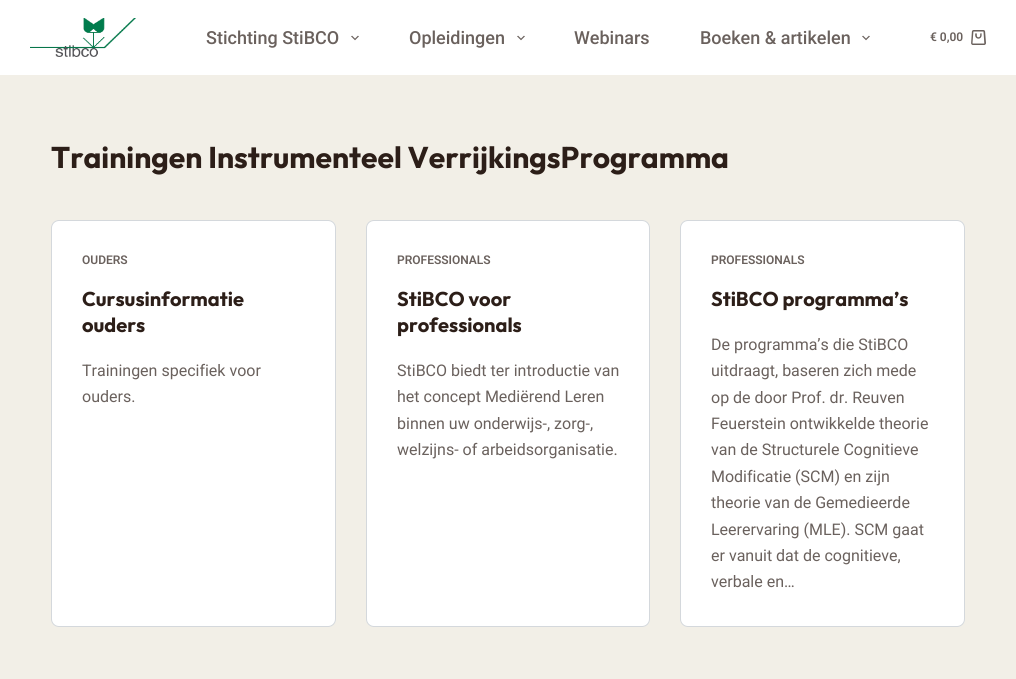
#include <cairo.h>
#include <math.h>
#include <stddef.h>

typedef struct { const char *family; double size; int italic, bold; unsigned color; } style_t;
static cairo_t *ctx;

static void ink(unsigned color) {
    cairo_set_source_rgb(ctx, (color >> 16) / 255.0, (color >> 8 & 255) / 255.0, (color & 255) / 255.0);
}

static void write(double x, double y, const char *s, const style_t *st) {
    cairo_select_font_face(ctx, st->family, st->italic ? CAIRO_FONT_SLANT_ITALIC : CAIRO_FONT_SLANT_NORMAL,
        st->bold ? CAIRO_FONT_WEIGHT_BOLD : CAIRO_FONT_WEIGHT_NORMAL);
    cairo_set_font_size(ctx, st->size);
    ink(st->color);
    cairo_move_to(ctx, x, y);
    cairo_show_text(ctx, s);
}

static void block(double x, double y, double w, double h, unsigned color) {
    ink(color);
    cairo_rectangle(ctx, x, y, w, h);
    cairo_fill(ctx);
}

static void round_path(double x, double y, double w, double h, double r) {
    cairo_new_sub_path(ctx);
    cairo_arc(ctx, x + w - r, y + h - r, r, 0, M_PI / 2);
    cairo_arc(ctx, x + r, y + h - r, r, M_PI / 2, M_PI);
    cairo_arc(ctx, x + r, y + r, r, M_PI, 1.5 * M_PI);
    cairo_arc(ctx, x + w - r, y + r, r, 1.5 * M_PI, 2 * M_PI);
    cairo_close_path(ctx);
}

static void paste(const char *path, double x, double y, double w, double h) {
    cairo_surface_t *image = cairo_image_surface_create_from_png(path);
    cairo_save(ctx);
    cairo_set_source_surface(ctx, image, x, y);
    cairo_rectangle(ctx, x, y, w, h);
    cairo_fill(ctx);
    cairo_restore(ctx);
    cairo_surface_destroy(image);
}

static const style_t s1 = {"Roboto Medium", 18, 0, 0, 0x6a615d};
static const style_t s2 = {"Roboto SemiBold", 12, 0, 0, 0x6a615d};
static const style_t s3 = {"Outfit", 30, 0, 1, 0x2c1e18};
static const style_t s4 = {"Outfit", 20, 0, 1, 0x2c1e18};
static const style_t s5 = {"Roboto", 16, 0, 0, 0x6a615d};

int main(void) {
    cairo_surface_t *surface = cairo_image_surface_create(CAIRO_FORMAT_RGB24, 1016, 679);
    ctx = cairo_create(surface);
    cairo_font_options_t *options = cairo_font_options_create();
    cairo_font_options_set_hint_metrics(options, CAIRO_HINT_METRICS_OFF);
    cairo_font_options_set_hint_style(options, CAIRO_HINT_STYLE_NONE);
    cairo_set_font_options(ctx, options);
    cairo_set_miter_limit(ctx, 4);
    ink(0xf2efe7);
    cairo_paint(ctx);
    block(0, 0, 1016, 75, 0xffffff);
    paste("pic1.png", 30, 18, 106, 39);
    write(206, 44, "Stichting StiBCO", &s1);
    paste("pic2.png", 351, 35, 8, 6);
    write(409, 44, "Opleidingen", &s1);
    paste("pic2.png", 517, 35, 8, 6);
    write(574, 44, "Webinars", &s1);
    write(700, 44, "Boeken & artikelen", &s1);
    paste("pic2.png", 862, 35, 8, 6);
    write(930, 41, "€ 0,00", &s2);
    paste("pic3.png", 971, 30, 15, 15);
    write(51, 168, "Trainingen Instrumenteel VerrijkingsProgramma", &s3);
    ink(0xffffff);
    round_path(51, 220, 285, 407, 8);
    cairo_fill(ctx);
    round_path(51.5, 220.5, 284, 406, 7.5);
    cairo_set_source_rgba(ctx, 0.173, 0.243, 0.314, 0.2);
    cairo_set_line_width(ctx, 1);
    cairo_stroke(ctx);
    write(82, 264, "OUDERS", &s2);
    write(82, 306, "Cursusinformatie", &s4);
    write(82, 332, "ouders", &s4);
    write(82, 376, "Trainingen specifiek voor", &s5);
    write(82, 402, "ouders.", &s5);
    ink(0xffffff);
    round_path(366, 220, 284, 407, 8);
    cairo_fill(ctx);
    round_path(366.5, 220.5, 283, 406, 7.5);
    cairo_set_source_rgba(ctx, 0.173, 0.243, 0.314, 0.2);
    cairo_stroke(ctx);
    write(397, 264, "PROFESSIONALS", &s2);
    write(397, 306, "StiBCO voor", &s4);
    write(397, 332, "professionals", &s4);
    write(397, 376, "StiBCO biedt ter introductie van", &s5);
    write(397, 402, "het concept Mediërend Leren", &s5);
    write(397, 429, "binnen uw onderwijs-, zorg-,", &s5);
    write(397, 455, "welzijns- of arbeidsorganisatie.", &s5);
    ink(0xffffff);
    round_path(680, 220, 285, 407, 8);
    cairo_fill(ctx);
    round_path(680.5, 220.5, 284, 406, 7.5);
    cairo_set_source_rgba(ctx, 0.173, 0.243, 0.314, 0.2);
    cairo_stroke(ctx);
    write(711, 264, "PROFESSIONALS", &s2);
    write(711, 306, "StiBCO programma’s", &s4);
    write(711, 350, "De programma’s die StiBCO", &s5);
    write(711, 376, "uitdraagt, baseren zich mede", &s5);
    write(711, 403, "op de door Prof. dr. Reuven", &s5);
    write(711, 429, "Feuerstein ontwikkelde theorie", &s5);
    write(711, 455, "van de Structurele Cognitieve", &s5);
    write(711, 482, "Modificatie (SCM) en zijn", &s5);
    write(711, 508, "theorie van de Gemedieerde", &s5);
    write(711, 535, "Leerervaring (MLE). SCM gaat", &s5);
    write(711, 561, "er vanuit dat de cognitieve,", &s5);
    write(711, 587, "verbale en…", &s5);
    cairo_surface_write_to_png(surface, "screenshot.png");
    cairo_font_options_destroy(options);
    cairo_destroy(ctx);
    cairo_surface_destroy(surface);
    return 0;
}
